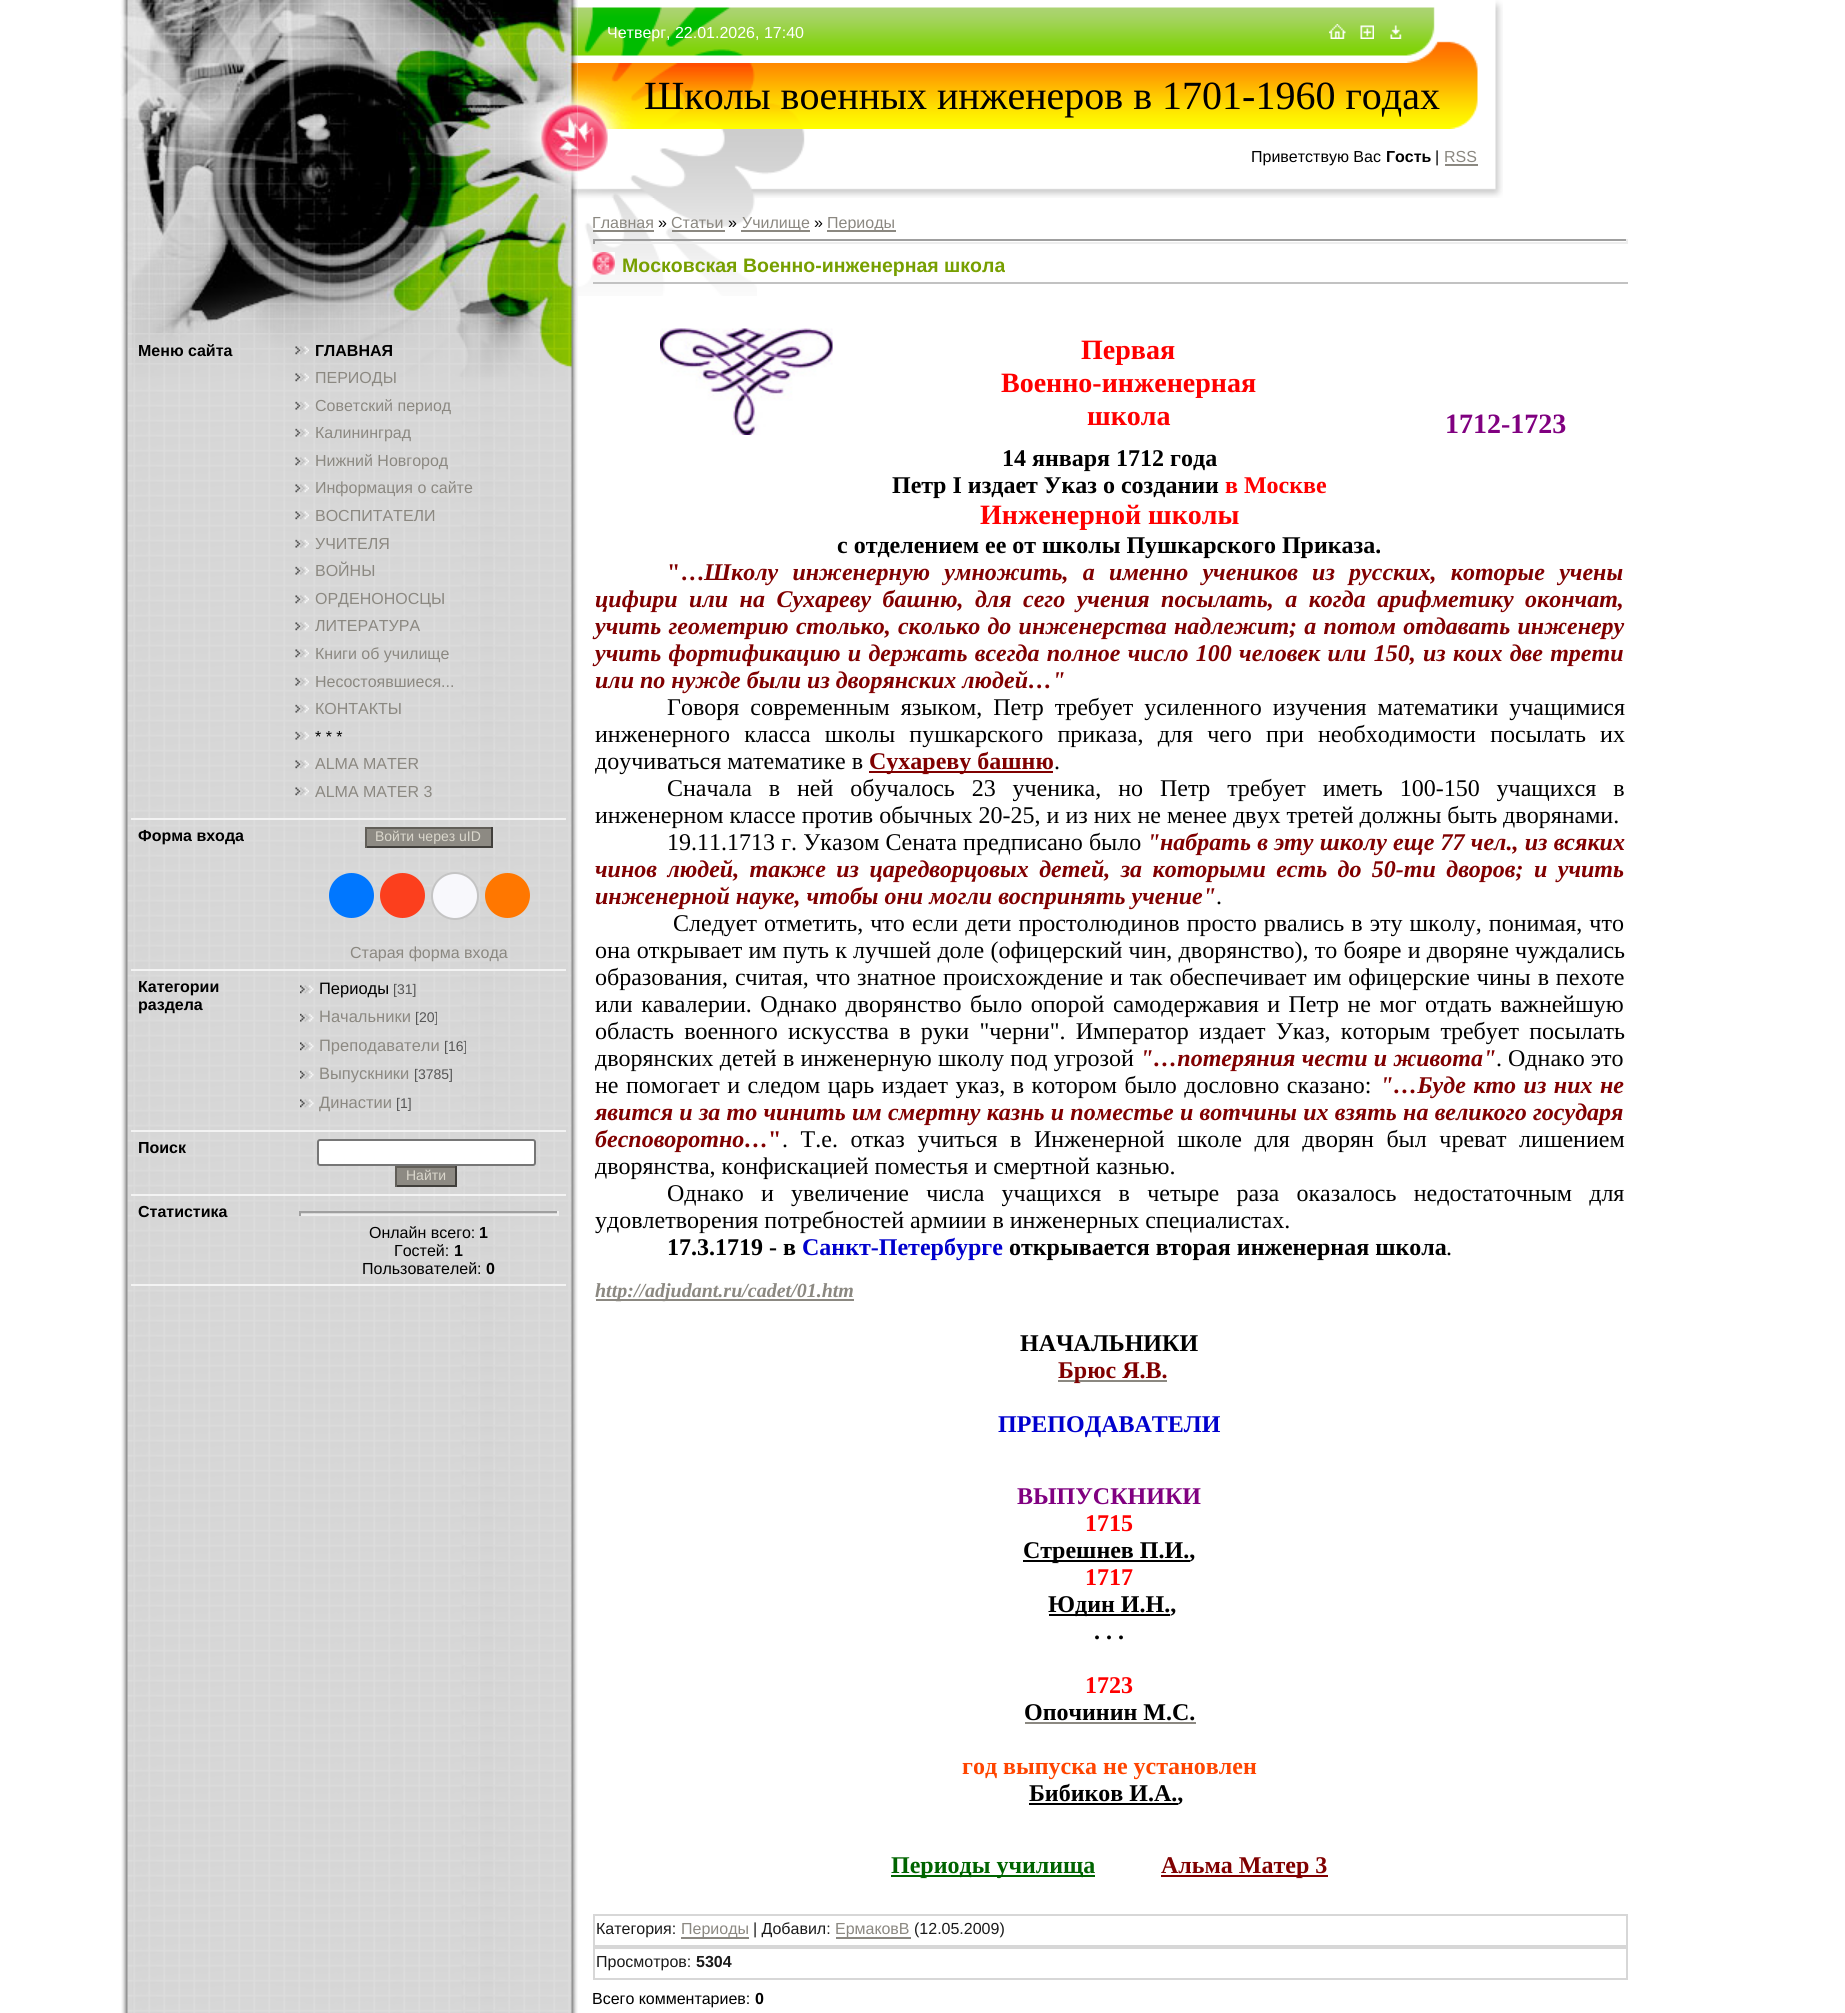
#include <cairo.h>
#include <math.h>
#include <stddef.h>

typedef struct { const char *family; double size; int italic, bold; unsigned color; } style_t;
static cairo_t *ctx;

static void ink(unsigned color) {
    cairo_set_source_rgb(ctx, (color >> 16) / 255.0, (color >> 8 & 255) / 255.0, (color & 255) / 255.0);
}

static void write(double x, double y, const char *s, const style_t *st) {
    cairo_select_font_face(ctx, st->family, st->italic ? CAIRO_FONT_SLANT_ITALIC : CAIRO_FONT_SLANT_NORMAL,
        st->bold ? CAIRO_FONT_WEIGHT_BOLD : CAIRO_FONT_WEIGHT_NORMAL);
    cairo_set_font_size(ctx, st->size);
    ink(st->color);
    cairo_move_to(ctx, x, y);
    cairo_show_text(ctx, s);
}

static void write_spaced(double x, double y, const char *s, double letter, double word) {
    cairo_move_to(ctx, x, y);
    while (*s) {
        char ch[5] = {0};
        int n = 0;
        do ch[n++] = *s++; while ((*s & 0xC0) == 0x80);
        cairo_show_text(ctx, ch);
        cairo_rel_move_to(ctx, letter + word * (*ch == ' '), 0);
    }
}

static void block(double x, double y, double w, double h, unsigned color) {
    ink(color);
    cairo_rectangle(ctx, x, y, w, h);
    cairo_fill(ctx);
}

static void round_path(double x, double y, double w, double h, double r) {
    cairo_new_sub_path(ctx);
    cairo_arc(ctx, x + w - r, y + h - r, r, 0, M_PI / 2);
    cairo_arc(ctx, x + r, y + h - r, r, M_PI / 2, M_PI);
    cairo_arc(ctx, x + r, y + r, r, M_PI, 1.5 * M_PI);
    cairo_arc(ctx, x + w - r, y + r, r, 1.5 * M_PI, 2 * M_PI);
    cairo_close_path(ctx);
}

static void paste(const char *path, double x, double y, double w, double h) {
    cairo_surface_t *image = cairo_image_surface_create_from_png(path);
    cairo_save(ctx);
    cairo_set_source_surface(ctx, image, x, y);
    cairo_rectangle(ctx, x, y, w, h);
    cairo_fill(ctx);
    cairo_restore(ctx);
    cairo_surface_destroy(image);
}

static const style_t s1 = {"Liberation Sans", 16, 0, 1, 0x000000};
static const style_t s2 = {"Liberation Sans", 16, 0, 0, 0x8b8881};
static const style_t s3 = {"Liberation Sans", 16, 0, 0, 0x000000};
static const style_t s4 = {"Liberation Sans", 14, 0, 0, 0xdad7cc};
static const style_t s5 = {"Liberation Sans", 16.5, 0, 0, 0x000000};
static const style_t s6 = {"Liberation Sans", 14, 0, 0, 0x555555};
static const style_t s7 = {"Liberation Sans", 16.5, 0, 0, 0x8b8881};
static const style_t s8 = {"Liberation Sans", 16, 0, 0, 0xffffff};
static const style_t s9 = {"Liberation Serif", 40, 0, 0, 0x000000};
static const style_t s10 = {"Liberation Sans", 19.5, 0, 1, 0x779f00};
static const style_t s11 = {"Liberation Serif", 28, 0, 1, 0xff0000};
static const style_t s12 = {"Liberation Serif", 28, 0, 1, 0x800080};
static const style_t s13 = {"Liberation Serif", 24, 0, 1, 0x000000};
static const style_t s14 = {"Liberation Serif", 24, 0, 1, 0xff0000};
static const style_t s15 = {"Liberation Serif", 24, 0, 1, 0x800000};
static const style_t s16 = {"Liberation Serif", 24, 1, 1, 0x800000};
static const style_t s17 = {"Liberation Serif", 24, 0, 0, 0x000000};
static const style_t s18 = {"Liberation Serif", 24, 0, 1, 0x0000cd};
static const style_t s19 = {"Liberation Serif", 20, 1, 1, 0x8b8881};
static const style_t s20 = {"Liberation Serif", 24, 0, 1, 0x800080};
static const style_t s21 = {"Liberation Serif", 24, 0, 1, 0xff4500};
static const style_t s22 = {"Liberation Serif", 24, 0, 1, 0x006400};
static const style_t s23 = {"Liberation Sans", 16, 0, 0, 0x1a1a1a};
static const style_t s24 = {"Liberation Sans", 16, 0, 1, 0x1a1a1a};

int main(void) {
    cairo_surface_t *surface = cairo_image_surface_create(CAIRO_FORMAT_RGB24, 1845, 2013);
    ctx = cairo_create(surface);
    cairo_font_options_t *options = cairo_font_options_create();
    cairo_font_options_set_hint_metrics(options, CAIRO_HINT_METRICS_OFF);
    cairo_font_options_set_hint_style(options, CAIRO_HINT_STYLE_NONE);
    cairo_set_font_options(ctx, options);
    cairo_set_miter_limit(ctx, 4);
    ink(0xffffff);
    cairo_paint(ctx);
    paste("pic1.png", 121, 0, 457, 2013);
    paste("pic21.png", 577, 0, 926, 63);
    paste("pic25.png", 577, 63, 926, 66);
    paste("pic26.png", 577, 129, 926, 69);
    paste("pic2.png", 120, 0, 458, 333);
    paste("pic3.png", 128, 333, 445, 44);
    block(131, 818, 435, 2, 0xf3f3f3);
    write(138, 356, "Меню сайта", &s1);
    paste("pic4.png", 295, 346, 14, 9);
    write(315, 356, "ГЛАВНАЯ", &s1);
    paste("pic5.png", 295, 373, 14, 9);
    write(315, 383, "ПЕРИОДЫ", &s2);
    paste("pic6.png", 295, 401, 14, 9);
    write(315, 411, "Советский период", &s2);
    paste("pic7.png", 295, 428, 14, 9);
    write(315, 438, "Калининград", &s2);
    paste("pic8.png", 295, 457, 14, 9);
    write(315, 466, "Нижний Новгород", &s2);
    paste("pic9.png", 295, 484, 14, 9);
    write(315, 493, "Информация о сайте", &s2);
    paste("pic10.png", 295, 511, 14, 9);
    write(315, 521, "ВОСПИТАТЕЛИ", &s2);
    paste("pic11.png", 295, 539, 14, 9);
    write(315, 549, "УЧИТЕЛЯ", &s2);
    paste("pic12.png", 295, 566, 14, 9);
    write(315, 576, "ВОЙНЫ", &s2);
    paste("pic13.png", 295, 595, 14, 9);
    write(315, 604, "ОРДЕНОНОСЦЫ", &s2);
    paste("pic8.png", 295, 622, 14, 9);
    write(315, 631, "ЛИТЕРАТУРА", &s2);
    paste("pic9.png", 295, 649, 14, 9);
    write(315, 659, "Книги об училище", &s2);
    paste("pic14.png", 295, 677, 14, 9);
    write(315, 687, "Несостоявшиеся...", &s2);
    paste("pic11.png", 295, 704, 14, 9);
    write(315, 714, "КОНТАКТЫ", &s2);
    paste("pic12.png", 295, 731, 14, 9);
    write(315, 742, "* * *", &s3);
    paste("pic15.png", 295, 760, 14, 9);
    write(315, 769, "ALMA MATER", &s2);
    paste("pic8.png", 295, 787, 14, 9);
    write(315, 797, "ALMA MATER 3", &s2);
    block(131, 969, 435, 2, 0xf3f3f3);
    write(138, 841, "Форма входа", &s1);
    block(367, 829, 124, 17, 0x8d8a83);
    block(365, 827, 127, 2, 0x615e58);
    block(491, 827, 2, 21, 0x413f3b);
    block(365, 846, 127, 2, 0x413f3b);
    block(365, 827, 2, 21, 0x615e58);
    write(375, 841, "Войти через uID", &s4);
    ink(0x0077ff);
    cairo_new_path(ctx);
    cairo_arc(ctx, 351.5, 895.5, 22.5, 0, 2 * M_PI);
    cairo_fill(ctx);
    ink(0xfc3f1d);
    cairo_arc(ctx, 402.5, 895.5, 22.5, 0, 2 * M_PI);
    cairo_fill(ctx);
    ink(0xf8f8fc);
    cairo_arc(ctx, 455, 896, 23, 0, 2 * M_PI);
    cairo_fill_preserve(ctx);
    ink(0xc4c4c4);
    cairo_stroke(ctx);
    ink(0xff7700);
    cairo_arc(ctx, 507.5, 895.5, 22.5, 0, 2 * M_PI);
    cairo_fill(ctx);
    write(350, 958, "Старая форма входа", &s2);
    block(131, 1130, 435, 2, 0xf3f3f3);
    write(138, 992, "Категории", &s1);
    write(138, 1010, "раздела", &s1);
    paste("pic16.png", 300, 985, 14, 9);
    write(319, 994, "Периоды", &s5);
    write(393, 994, "[31]", &s6);
    paste("pic17.png", 300, 1013, 14, 9);
    write(319, 1022, "Начальники", &s7);
    write(415, 1022, "[20]", &s6);
    paste("pic18.png", 300, 1042, 14, 9);
    write(319, 1051, "Преподаватели", &s7);
    write(444, 1051, "[16]", &s6);
    paste("pic19.png", 300, 1070, 14, 9);
    write(319, 1079, "Выпускники", &s7);
    write(414, 1079, "[3785]", &s6);
    paste("pic20.png", 300, 1099, 14, 9);
    write(319, 1108, "Династии", &s7);
    write(396, 1108, "[1]", &s6);
    block(131, 1194, 435, 2, 0xf3f3f3);
    write(138, 1153, "Поиск", &s1);
    ink(0xffffff);
    round_path(318, 1140, 217, 25, 2);
    cairo_fill_preserve(ctx);
    ink(0x767676);
    cairo_stroke(ctx);
    block(397, 1168, 58, 17, 0x8d8a83);
    block(395, 1166, 61, 2, 0x615e58);
    block(455, 1166, 2, 21, 0x413f3b);
    block(395, 1185, 61, 2, 0x413f3b);
    block(395, 1166, 2, 21, 0x615e58);
    write(406, 1180, "Найти", &s4);
    block(131, 1284, 435, 2, 0xf3f3f3);
    write(138, 1217, "Статистика", &s1);
    block(299, 1211, 259, 2, 0x9f9f9f);
    block(557, 1211, 2, 5, 0xeeeeee);
    block(299, 1214, 259, 2, 0xeeeeee);
    block(299, 1211, 2, 5, 0x9f9f9f);
    write(369, 1238, "Онлайн всего:", &s3);
    write(479, 1238, "1", &s1);
    write(394, 1256, "Гостей:", &s3);
    write(454, 1256, "1", &s1);
    write(362, 1274, "Пользователей:", &s3);
    write(486, 1274, "0", &s1);
    write(607, 38, "Четверг, 22.01.2026, 17:40", &s8);
    paste("pic22.png", 1329, 24, 17, 15);
    paste("pic23.png", 1360, 25, 14, 14);
    paste("pic24.png", 1390, 25, 12, 14);
    write(644, 109, "Школы военных инженеров в 1701-1960 годах", &s9);
    write(1251, 162, "Приветствую Вас", &s3);
    write(1386, 162, "Гость", &s1);
    write(1435, 162, "|", &s3);
    write(1444, 162, "RSS", &s2);
    block(1445, 164, 33, 2, 0x8b8881);
    paste("pic27.png", 578, 198, 179, 98);
    write(592, 228, "Главная", &s2);
    block(593, 230, 61, 2, 0x8b8881);
    write(658, 228, "»", &s3);
    write(671, 228, "Статьи", &s2);
    block(672, 230, 53, 2, 0x8b8881);
    write(728, 228, "»", &s3);
    block(741, 230, 69, 2, 0x8b8881);
    write(742, 228, "Училищe", &s2);
    write(814, 228, "»", &s3);
    block(827, 230, 69, 2, 0x8b8881);
    write(827, 228, "Периоды", &s2);
    block(593, 239, 1035, 2, 0x9f9f9f);
    block(1626, 239, 2, 5, 0xeeeeee);
    block(603, 242, 1025, 2, 0xeeeeee);
    block(593, 239, 2, 5, 0x9f9f9f);
    paste("pic28.png", 592, 252, 23, 23);
    write(622, 272, "Московская Военно-инженерная школа", &s10);
    block(593, 282, 1035, 2, 0xc2c2c2);
    paste("pic29.png", 660, 328, 173, 107);
    write(1081, 359, "Первая", &s11);
    write(1001, 392, "Военно-инженерная", &s11);
    write(1087, 425, "школа", &s11);
    write(1445, 433, "1712-1723", &s12);
    write(1002, 466, "14 января 1712 года", &s13);
    write(892, 493, "Петр I издает Указ о создании", &s13);
    write(1225, 493, "в Москве", &s14);
    write(980, 524, "Инженерной школы", &s11);
    write(837, 553, "с отделением ее от школы Пушкарского Приказа.", &s13);
    write(667, 580, "\"…", &s15);
    cairo_select_font_face(ctx, "Liberation Serif", CAIRO_FONT_SLANT_ITALIC, CAIRO_FONT_WEIGHT_BOLD);
    write_spaced(704, 580, "Школу инженерную умножить, а именно учеников из русских, которые учены", 0, 8.25);
    write_spaced(595, 607, "цифири или на Сухареву башню, для сего учения посылать, а когда арифметику окончат,", 0, 5.5);
    write_spaced(595, 634, "учить геометрию столько, сколько до инженерства надлежит; а потом отдавать инженеру", 0, 1.25);
    write_spaced(595, 661, "учить фортификацию и держать всегда полное число 100 человек или 150, из коих две трети", 0, 1.25);
    write(595, 688, "или по нужде были из дворянских людей…\"", &s16);
    cairo_select_font_face(ctx, "Liberation Serif", CAIRO_FONT_SLANT_NORMAL, CAIRO_FONT_WEIGHT_NORMAL);
    ink(0x000000);
    write_spaced(667, 715, "Говоря современным языком, Петр требует усиленного изучения математики учащимися", 0, 5);
    write_spaced(595, 742, "инженерного класса школы пушкарского приказа, для чего при необходимости посылать их", 0, 8.25);
    write(595, 769, "доучиваться математике в", &s17);
    block(869, 771, 184, 2, 0x800000);
    write(869, 769, "Сухареву башню", &s15);
    write(1054, 769, ".", &s17);
    write_spaced(667, 796, "Сначала в ней обучалось 23 ученика, но Петр требует иметь 100-150 учащихся в", 0, 10.9);
    write(595, 823, "инженерном классе против обычных 20-25, и из них не менее двух третей должны быть дворянами.", &s17);
    write_spaced(667, 850, "19.11.1713 г. Указом Сената предписано было", 0, 0.25);
    write(1147, 850, "\"", &s16);
    write_spaced(1160, 850, "набрать в эту школу еще 77 чел., из всяких", 0, 0.25);
    write_spaced(595, 877, "чинов людей, также из царедворцовых детей, за которыми есть до 50-ти дворов; и учить", 0, 4.4);
    write(595, 904, "инженерной науке, чтобы они могли воспринять учение\"", &s16);
    write(1216, 904, ".", &s17);
    write_spaced(673, 931, "Следует отметить, что если дети простолюдинов просто рвались в эту школу, понимая, что", 0, 1.1);
    write_spaced(595, 958, "она открывает им путь к лучшей доле (офицерский чин, дворянство), то бояре и дворяне чуждались", 0, 0.25);
    write_spaced(595, 985, "образования, считая, что знатное происхождение и так обеспечивает им офицерские чины в пехоте", 0, 0.9);
    write_spaced(595, 1012, "или кавалерии. Однако дворянство было опорой самодержавия и Петр не мог отдать важнейшую", 0, 2.5);
    write_spaced(595, 1039, "область военного искусства в руки \"черни\". Император издает Указ, которым требует посылать", 0, 4.25);
    write_spaced(595, 1066, "дворянских детей в инженерную школу под угрозой", 0, 0.25);
    cairo_select_font_face(ctx, "Liberation Serif", CAIRO_FONT_SLANT_ITALIC, CAIRO_FONT_WEIGHT_BOLD);
    ink(0x800000);
    write_spaced(1140, 1066, "\"…потеряния чести и живота\"", 0, 0.25);
    write(1496, 1066, ". Однако это", &s17);
    write_spaced(595, 1093, "не помогает и следом царь издает указ, в котором было дословно сказано:", 0, 1.5);
    cairo_select_font_face(ctx, "Liberation Serif", CAIRO_FONT_SLANT_ITALIC, CAIRO_FONT_WEIGHT_BOLD);
    ink(0x800000);
    write_spaced(1380, 1093, "\"…Буде кто из них не", 0, 1.5);
    write_spaced(595, 1120, "явится и за то чинить им смертну казнь и поместье и вотчины их взять на великого государя", 0, 0.25);
    write(595, 1147, "бесповоротно…", &s16);
    write(768, 1147, "\"", &s15);
    cairo_select_font_face(ctx, "Liberation Serif", CAIRO_FONT_SLANT_NORMAL, CAIRO_FONT_WEIGHT_NORMAL);
    ink(0x000000);
    write_spaced(782, 1147, ". Т.е. отказ учиться в Инженерной школе для дворян был чреват лишением", 0, 6.6);
    write(595, 1174, "дворянства, конфискацией поместья и смертной казнью.", &s17);
    write_spaced(667, 1201, "Однако и увеличение числа учащихся в четыре раза оказалось недостаточным для", 0, 11.25);
    write(595, 1228, "удовлетворения потребностей армиии в инженерных специалистах.", &s17);
    write(667, 1255, "17.3.1719 - в", &s13);
    write(802, 1255, "Санкт-Петербурге", &s18);
    write(1009, 1255, "открывается вторая инженерная школа", &s13);
    write(1446, 1255, ".", &s17);
    block(596, 1299, 49, 2, 0x8b8881);
    write(595, 1297, "http://", &s19);
    block(645, 1299, 104, 2, 0x8b8881);
    write(645, 1297, "adjudant.ru/cadet/01.htm", &s19);
    block(749, 1299, 105, 2, 0x8b8881);
    write(1020, 1351, "НАЧАЛЬНИКИ", &s13);
    block(1058, 1380, 109, 2, 0x8b8881);
    write(1058, 1378, "Брюс Я.В.", &s15);
    write(998, 1432, "ПРЕПОДАВАТЕЛИ", &s18);
    write(1017, 1504, "ВЫПУСКНИКИ", &s20);
    write(1085, 1531, "1715", &s14);
    block(1023, 1560, 167, 2, 0x000000);
    write(1023, 1558, "Стрешнев П.И.,", &s13);
    write(1085, 1585, "1717", &s14);
    block(1049, 1614, 121, 2, 0x000000);
    write(1048, 1612, "Юдин И.Н.,", &s13);
    write(1094, 1639, ". . .", &s13);
    write(1085, 1693, "1723", &s14);
    write(1024, 1720, "Опочинин М.С.", &s13);
    block(1025, 1722, 171, 2, 0x8b8881);
    write(962, 1774, "год выпуска не установлен", &s21);
    block(1029, 1803, 149, 2, 0x000000);
    write(1029, 1801, "Бибиков И.А.,", &s13);
    block(891, 1875, 204, 2, 0x006400);
    write(891, 1873, "Периоды училища", &s22);
    block(1161, 1875, 167, 2, 0x800000);
    write(1161, 1873, "Альма Матер 3", &s15);
    cairo_rectangle(ctx, 594, 1915, 1033, 31);
    ink(0xd7d7d7);
    cairo_stroke(ctx);
    write(596, 1934, "Категория:", &s23);
    block(681, 1937, 68, 2, 0x8b8881);
    write(681, 1934, "Периоды", &s2);
    write(753, 1934, "| Добавил:", &s23);
    block(836, 1937, 75, 2, 0x8b8881);
    write(835, 1934, "ЕрмаковВ", &s2);
    write(914, 1934, "(12.05.2009)", &s23);
    cairo_rectangle(ctx, 594, 1948, 1033, 31);
    ink(0xd7d7d7);
    cairo_stroke(ctx);
    write(596, 1967, "Просмотров:", &s23);
    write(696, 1967, "5304", &s24);
    write(592, 2004, "Всего комментариев:", &s3);
    write(755, 2004, "0", &s1);
    cairo_surface_write_to_png(surface, "screenshot.png");
    cairo_font_options_destroy(options);
    cairo_destroy(ctx);
    cairo_surface_destroy(surface);
    return 0;
}
